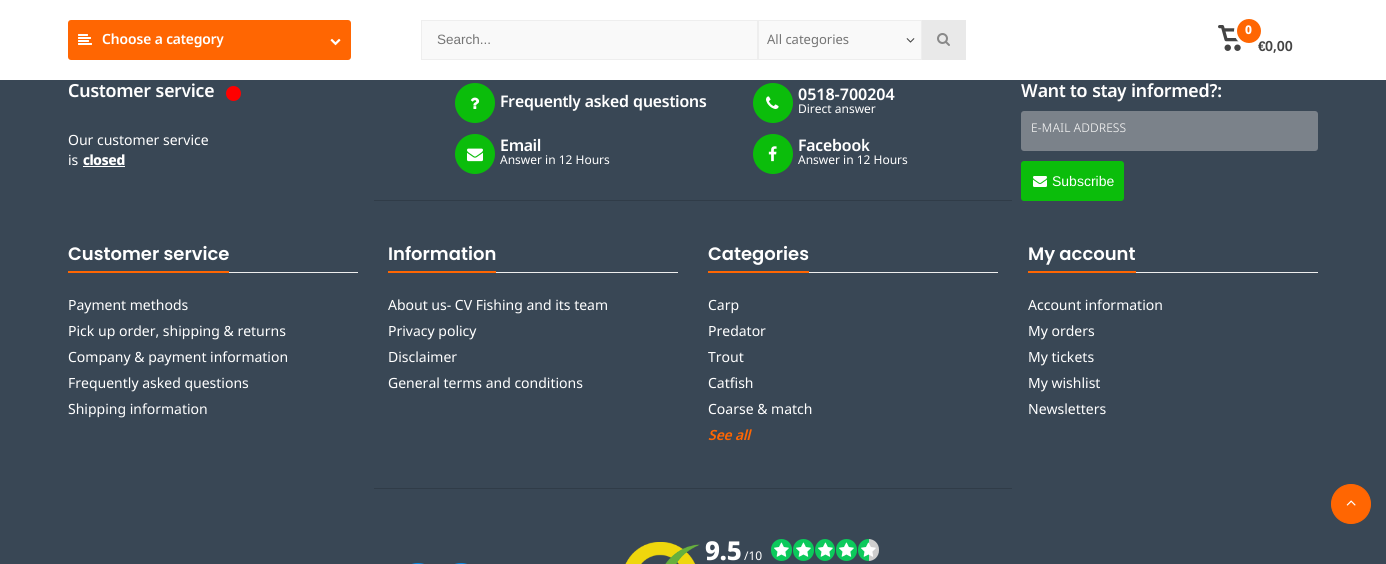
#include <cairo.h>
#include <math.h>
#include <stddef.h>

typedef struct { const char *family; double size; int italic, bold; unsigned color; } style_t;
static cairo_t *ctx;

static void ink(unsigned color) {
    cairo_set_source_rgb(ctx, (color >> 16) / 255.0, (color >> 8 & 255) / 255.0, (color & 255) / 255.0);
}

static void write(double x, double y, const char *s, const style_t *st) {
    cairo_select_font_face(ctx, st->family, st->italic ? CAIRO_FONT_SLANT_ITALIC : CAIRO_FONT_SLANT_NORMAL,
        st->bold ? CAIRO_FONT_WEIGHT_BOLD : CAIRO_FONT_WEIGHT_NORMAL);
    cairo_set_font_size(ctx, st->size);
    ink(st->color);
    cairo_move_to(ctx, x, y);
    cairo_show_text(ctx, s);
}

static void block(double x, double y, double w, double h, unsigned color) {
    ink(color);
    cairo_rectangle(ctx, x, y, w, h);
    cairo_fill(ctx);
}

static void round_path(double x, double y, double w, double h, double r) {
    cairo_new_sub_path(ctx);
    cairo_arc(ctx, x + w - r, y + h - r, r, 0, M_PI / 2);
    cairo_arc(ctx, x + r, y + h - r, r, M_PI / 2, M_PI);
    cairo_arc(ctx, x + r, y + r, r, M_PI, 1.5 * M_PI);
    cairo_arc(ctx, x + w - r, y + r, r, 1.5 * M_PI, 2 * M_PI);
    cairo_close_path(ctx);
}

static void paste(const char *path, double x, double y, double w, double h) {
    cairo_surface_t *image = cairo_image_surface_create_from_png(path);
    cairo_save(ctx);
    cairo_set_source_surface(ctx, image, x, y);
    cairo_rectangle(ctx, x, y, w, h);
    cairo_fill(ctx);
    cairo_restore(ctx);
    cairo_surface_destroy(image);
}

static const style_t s1 = {"Nokora SemiBold", 14, 0, 0, 0xffffff};
static const style_t s2 = {"Liberation Sans", 13.5, 0, 0, 0x757575};
static const style_t s3 = {"Nokora", 13, 0, 0, 0x757575};
static const style_t s4 = {"Liberation Sans", 14, 0, 1, 0x444444};
static const style_t s5 = {"Nokora ExtraBold", 12, 0, 0, 0xffffff};
static const style_t s6 = {"Nokora SemiBold", 14, 0, 0, 0x444444};
static const style_t s7 = {"Nokora SemiBold", 18, 0, 0, 0xffffff};
static const style_t s8 = {"Nokora", 14, 0, 0, 0xffffff};
static const style_t s9 = {"Nokora ExtraBold", 14, 0, 0, 0xffffff};
static const style_t s10 = {"Nokora SemiBold", 16, 0, 0, 0xffffff};
static const style_t s11 = {"Nokora", 12, 0, 0, 0xffffff};
static const style_t s12 = {"Nokora Light", 12, 0, 0, 0xf2f2f2};
static const style_t s13 = {"Liberation Sans", 14, 0, 0, 0xffffff};
static const style_t s14 = {"Poppins SemiBold", 18, 0, 0, 0xffffff};
static const style_t s15 = {"Nokora SemiBold", 14, 1, 0, 0xff6602};
static const style_t s16 = {"Nokora ExtraBold", 26, 0, 0, 0xffffff};

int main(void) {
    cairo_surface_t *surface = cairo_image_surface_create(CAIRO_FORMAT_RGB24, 1386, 564);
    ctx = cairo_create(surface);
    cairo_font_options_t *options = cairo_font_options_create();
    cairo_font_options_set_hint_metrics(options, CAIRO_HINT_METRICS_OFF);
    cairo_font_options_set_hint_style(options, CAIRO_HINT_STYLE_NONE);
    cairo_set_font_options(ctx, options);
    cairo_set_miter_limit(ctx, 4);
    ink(0x394755);
    cairo_paint(ctx);
    block(0, 0, 1386, 80, 0xffffff);
    ink(0xff6602);
    round_path(68, 20, 283, 40, 3);
    cairo_fill(ctx);
    paste("pic1.png", 78, 34, 14, 11);
    write(102, 44, "Choose a category", &s1);
    paste("pic2.png", 330, 38, 11, 8);
    ink(0xf9f9f9);
    cairo_rectangle(ctx, 421.5, 20.5, 336, 39);
    cairo_fill_preserve(ctx);
    ink(0xeeeeee);
    cairo_set_line_width(ctx, 1);
    cairo_stroke(ctx);
    write(437, 44, "Search...", &s2);
    ink(0xf9f9f9);
    cairo_rectangle(ctx, 758.5, 20.5, 163, 39);
    cairo_fill_preserve(ctx);
    ink(0xeeeeee);
    cairo_stroke(ctx);
    write(767, 44, "All categories", &s3);
    paste("pic3.png", 906, 38, 9, 5);
    block(922, 20, 44, 40, 0xe9e9e9);
    paste("pic4.png", 937, 33, 13, 13);
    paste("pic5.png", 1218, 25, 23, 26);
    write(1258, 51, "€", &s4);
    ink(0xff6602);
    cairo_new_path(ctx);
    cairo_arc(ctx, 1249, 31, 13.5, 0, 2 * M_PI);
    cairo_fill_preserve(ctx);
    ink(0xffffff);
    cairo_set_line_width(ctx, 3);
    cairo_stroke(ctx);
    write(1245, 34, "0", &s5);
    write(1265, 51, "0,00", &s6);
    write(68, 97, "Customer service", &s7);
    ink(0xff0000);
    cairo_new_path(ctx);
    cairo_arc(ctx, 233.5, 93.5, 7.5, 0, 2 * M_PI);
    cairo_fill(ctx);
    write(68, 145, "Our customer service", &s8);
    write(68, 165, "is", &s8);
    write(83, 165, "closed", &s9);
    block(83, 166, 42, 1, 0xffffff);
    ink(0x0bbd0b);
    cairo_new_path(ctx);
    cairo_arc(ctx, 475, 103, 20, 0, 2 * M_PI);
    cairo_fill(ctx);
    paste("pic6.png", 470, 97, 10, 12);
    write(500, 107, "Frequently asked questions", &s10);
    ink(0x0bbd0b);
    cairo_new_path(ctx);
    cairo_arc(ctx, 773, 103, 20, 0, 2 * M_PI);
    cairo_fill(ctx);
    paste("pic7.png", 766, 96, 13, 13);
    write(798, 100, "0518-700204", &s10);
    write(798, 113, "Direct answer", &s11);
    ink(0x0bbd0b);
    cairo_new_path(ctx);
    cairo_arc(ctx, 475, 154, 20, 0, 2 * M_PI);
    cairo_fill(ctx);
    paste("pic8.png", 467, 148, 16, 14);
    write(500, 151, "Email", &s10);
    write(500, 164, "Answer in 12 Hours", &s11);
    ink(0x0bbd0b);
    cairo_new_path(ctx);
    cairo_arc(ctx, 773, 154, 20, 0, 2 * M_PI);
    cairo_fill(ctx);
    paste("pic9.png", 768, 146, 9, 16);
    write(798, 151, "Facebook", &s10);
    write(798, 164, "Answer in 12 Hours", &s11);
    write(1021, 97, "Want to stay informed?:", &s7);
    ink(0x7b828a);
    round_path(1021, 111, 297, 40, 3);
    cairo_fill(ctx);
    write(1031, 132, "E-MAIL ADDRESS", &s12);
    ink(0x0bbd0b);
    round_path(1021, 161, 103, 40, 3);
    cairo_fill(ctx);
    paste("pic10.png", 1033, 176, 14, 11);
    write(1052, 186, "Subscribe", &s13);
    block(374, 200, 638, 1, 0x303c48);
    block(229, 272, 129, 1, 0xeeeeee);
    write(68, 260, "Customer service", &s14);
    block(68, 271, 161, 2, 0xff6602);
    write(68, 310, "Payment methods", &s8);
    write(68, 336, "Pick up order, shipping & returns", &s8);
    write(68, 362, "Company & payment information", &s8);
    write(68, 388, "Frequently asked questions", &s8);
    write(68, 414, "Shipping information", &s8);
    block(496, 272, 182, 1, 0xeeeeee);
    write(388, 260, "Information", &s14);
    block(388, 271, 108, 2, 0xff6602);
    write(388, 310, "About us- CV Fishing and its team", &s8);
    write(388, 336, "Privacy policy", &s8);
    write(388, 362, "Disclaimer", &s8);
    write(388, 388, "General terms and conditions", &s8);
    block(809, 272, 189, 1, 0xeeeeee);
    write(708, 260, "Categories", &s14);
    block(708, 271, 101, 2, 0xff6602);
    write(708, 310, "Carp", &s8);
    write(708, 336, "Predator", &s8);
    write(708, 362, "Trout", &s8);
    write(708, 388, "Catfish", &s8);
    write(708, 414, "Coarse & match", &s8);
    write(708, 440, "See all", &s15);
    block(1136, 272, 182, 1, 0xeeeeee);
    write(1028, 260, "My account", &s14);
    block(1028, 271, 108, 2, 0xff6602);
    write(1028, 310, "Account information", &s8);
    write(1028, 336, "My orders", &s8);
    write(1028, 362, "My tickets", &s8);
    write(1028, 388, "My wishlist", &s8);
    write(1028, 414, "Newsletters", &s8);
    block(374, 488, 638, 1, 0x303c48);
    paste("pic11.png", 625, 542, 75, 22);
    write(705, 560, "9.5", &s16);
    write(744, 560, "/10", &s11);
    ink(0x0cc95b);
    round_path(771, 539, 21, 22, 10.5);
    cairo_fill(ctx);
    paste("pic12.png", 774, 542, 15, 15);
    round_path(793, 539, 21, 22, 10.5);
    cairo_fill(ctx);
    paste("pic12.png", 796, 542, 15, 15);
    cairo_new_path(ctx);
    cairo_move_to(ctx, 825, 539);
    cairo_curve_to(ctx, 830.5, 539, 835, 544, 835, 550);
    cairo_curve_to(ctx, 835, 556, 830.5, 561, 825, 561);
    cairo_curve_to(ctx, 819.5, 561, 815, 556, 815, 550);
    cairo_curve_to(ctx, 815, 544, 819.5, 539, 825, 539);
    cairo_close_path(ctx);
    cairo_fill(ctx);
    paste("pic13.png", 818, 542, 15, 15);
    round_path(836, 539, 21, 22, 10.5);
    cairo_fill(ctx);
    paste("pic12.png", 839, 542, 15, 15);
    cairo_save(ctx);
    round_path(858, 539, 21, 22, 10.5);
    cairo_clip(ctx);
    cairo_new_path(ctx);
    cairo_move_to(ctx, 868.5, 539);
    cairo_line_to(ctx, 869, 539);
    cairo_line_to(ctx, 869, 561);
    cairo_line_to(ctx, 868.5, 561);
    cairo_curve_to(ctx, 862.5, 561, 858, 556.5, 858, 550.5);
    cairo_line_to(ctx, 858, 549.5);
    cairo_curve_to(ctx, 858, 543.5, 862.5, 539, 868.5, 539);
    cairo_close_path(ctx);
    cairo_fill(ctx);
    block(869, 539, 10, 22, 0xcecece);
    cairo_restore(ctx);
    paste("pic14.png", 861, 542, 15, 15);
    ink(0x0a8de9);
    round_path(398, 563, 40, 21, 20);
    cairo_fill(ctx);
    round_path(441, 563, 40, 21, 20);
    cairo_fill(ctx);
    ink(0xff6602);
    cairo_arc(ctx, 1351, 504, 19.5, 0, 2 * M_PI);
    cairo_fill_preserve(ctx);
    cairo_set_line_width(ctx, 1);
    cairo_stroke(ctx);
    paste("pic15.png", 1346, 500, 10, 6);
    cairo_surface_write_to_png(surface, "screenshot.png");
    cairo_font_options_destroy(options);
    cairo_destroy(ctx);
    cairo_surface_destroy(surface);
    return 0;
}
